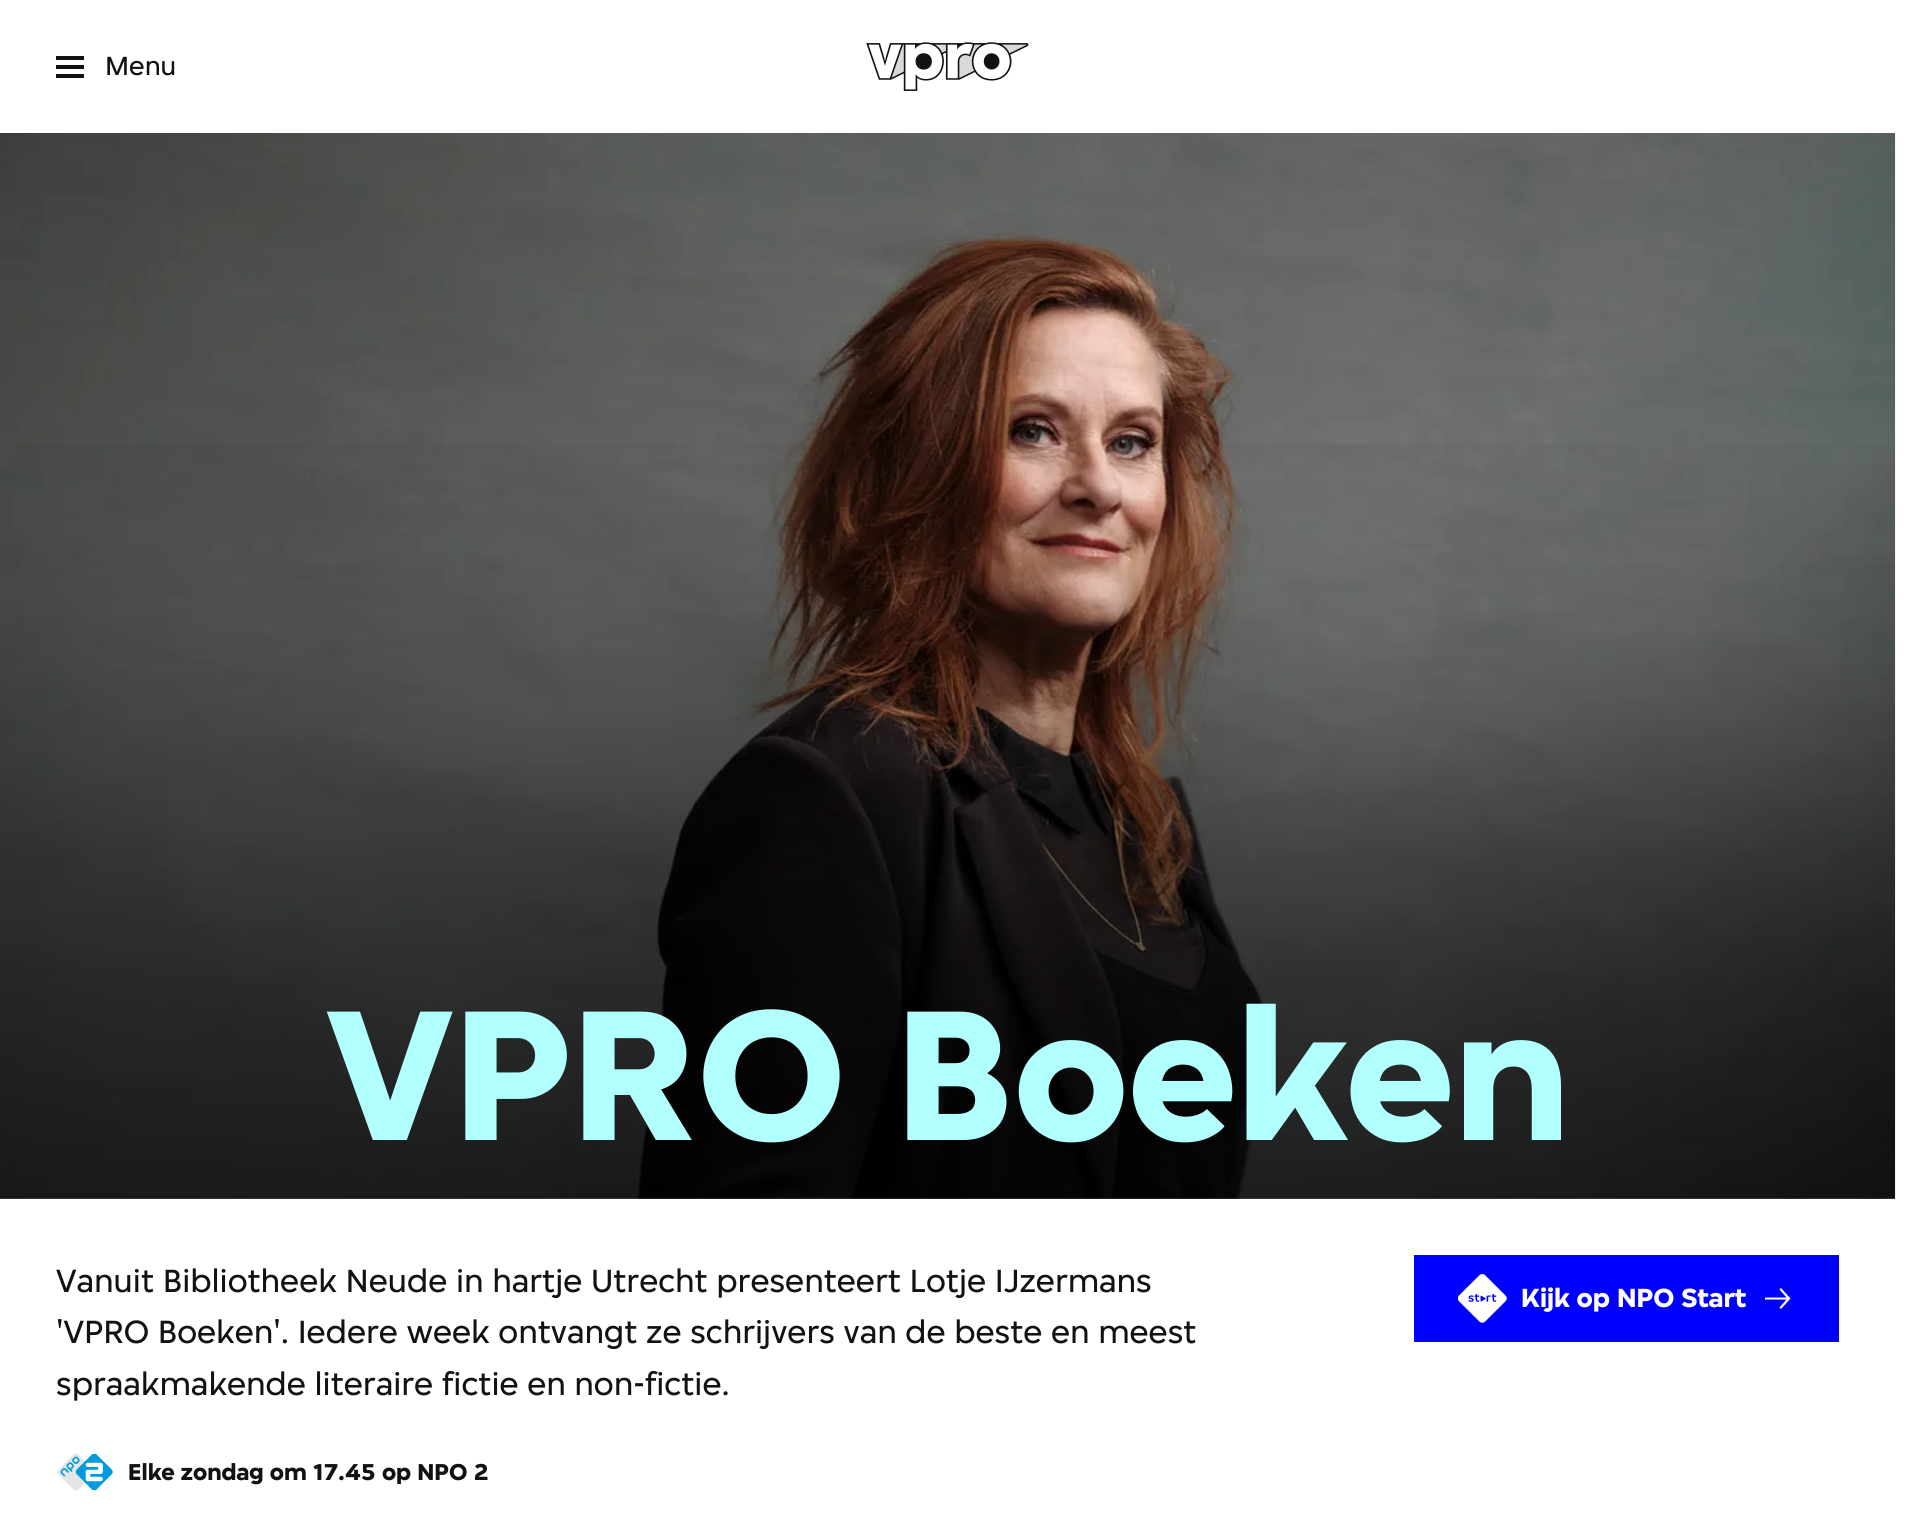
#include <cairo.h>
#include <math.h>
#include <stddef.h>

typedef struct { const char *family; double size; int italic, bold; unsigned color; } style_t;
static cairo_t *ctx;

static void ink(unsigned color) {
    cairo_set_source_rgb(ctx, (color >> 16) / 255.0, (color >> 8 & 255) / 255.0, (color & 255) / 255.0);
}

static void write(double x, double y, const char *s, const style_t *st) {
    cairo_select_font_face(ctx, st->family, st->italic ? CAIRO_FONT_SLANT_ITALIC : CAIRO_FONT_SLANT_NORMAL,
        st->bold ? CAIRO_FONT_WEIGHT_BOLD : CAIRO_FONT_WEIGHT_NORMAL);
    cairo_set_font_size(ctx, st->size);
    ink(st->color);
    cairo_move_to(ctx, x, y);
    cairo_show_text(ctx, s);
}

static void block(double x, double y, double w, double h, unsigned color) {
    ink(color);
    cairo_rectangle(ctx, x, y, w, h);
    cairo_fill(ctx);
}

static void paste(const char *path, double x, double y, double w, double h) {
    cairo_surface_t *image = cairo_image_surface_create_from_png(path);
    cairo_save(ctx);
    cairo_set_source_surface(ctx, image, x, y);
    cairo_rectangle(ctx, x, y, w, h);
    cairo_fill(ctx);
    cairo_restore(ctx);
    cairo_surface_destroy(image);
}

static const style_t s1 = {"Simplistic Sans", 28, 0, 0, 0x121212};
static const style_t s2 = {"Simplistic Sans", 197.5, 0, 1, 0xb2ffff};
static const style_t s3 = {"Simplistic Sans", 34.25, 0, 0, 0x121212};
static const style_t s4 = {"Simplistic Sans", 28, 0, 1, 0xffffff};
static const style_t s5 = {"Simplistic Sans", 24.5, 0, 1, 0x121212};

int main(void) {
    cairo_surface_t *surface = cairo_image_surface_create(CAIRO_FORMAT_RGB24, 1921, 1531);
    ctx = cairo_create(surface);
    cairo_font_options_t *options = cairo_font_options_create();
    cairo_font_options_set_hint_metrics(options, CAIRO_HINT_METRICS_OFF);
    cairo_font_options_set_hint_style(options, CAIRO_HINT_STYLE_NONE);
    cairo_set_font_options(ctx, options);
    cairo_set_miter_limit(ctx, 4);
    cairo_pattern_t *gradient;
    ink(0xffffff);
    cairo_paint(ctx);
    block(56, 65, 28, 4, 0x121212);
    block(56, 56, 28, 4, 0x121212);
    block(56, 74, 28, 4, 0x121212);
    write(105, 75, "Menu", &s1);
    paste("pic1.png", 866, 42, 163, 49);
    block(0, 1198, 1895, 1, 0xf0f0ff);
    paste("pic2.png", 0, 133, 1896, 1066);
    gradient = cairo_pattern_create_linear(948, 1199, 948, 133);
    cairo_pattern_add_color_stop_rgba(gradient, 0, 0, 0, 0, 0.66);
    cairo_pattern_add_color_stop_rgba(gradient, 0.11, 0, 0, 0, 0.58);
    cairo_pattern_add_color_stop_rgba(gradient, 0.2, 0, 0, 0, 0.51);
    cairo_pattern_add_color_stop_rgba(gradient, 0.26, 0, 0, 0, 0.44);
    cairo_pattern_add_color_stop_rgba(gradient, 0.32, 0, 0, 0, 0.37);
    cairo_pattern_add_color_stop_rgba(gradient, 0.36, 0, 0, 0, 0.31);
    cairo_pattern_add_color_stop_rgba(gradient, 0.4, 0, 0, 0, 0.26);
    cairo_pattern_add_color_stop_rgba(gradient, 0.44, 0, 0, 0, 0.2);
    cairo_pattern_add_color_stop_rgba(gradient, 0.47, 0, 0, 0, 0.16);
    cairo_pattern_add_color_stop_rgba(gradient, 0.51, 0, 0, 0, 0.12);
    cairo_pattern_add_color_stop_rgba(gradient, 0.55, 0, 0, 0, 0.08);
    cairo_pattern_add_color_stop_rgba(gradient, 0.6, 0, 0, 0, 0.05);
    cairo_pattern_add_color_stop_rgba(gradient, 0.67, 0, 0, 0, 0.03);
    cairo_pattern_add_color_stop_rgba(gradient, 0.76, 0, 0, 0, 0.01);
    cairo_pattern_add_color_stop_rgba(gradient, 0.87, 0, 0, 0, 0);
    cairo_pattern_add_color_stop_rgba(gradient, 1, 0, 0, 0, 0);
    cairo_set_source(ctx, gradient);
    cairo_pattern_destroy(gradient);
    cairo_rectangle(ctx, 0, 444, 1895, 755);
    cairo_fill(ctx);
    write(326, 1140, "VPRO Boeken", &s2);
    write(56, 1292, "Vanuit Bibliotheek Neude in hartje Utrecht presenteert Lotje IJzermans", &s3);
    write(56, 1343, "'VPRO Boeken'. Iedere week ontvangt ze schrijvers van de beste en meest", &s3);
    write(56, 1395, "spraakmakende literaire fictie en non-fictie.", &s3);
    ink(0x0000ff);
    cairo_rectangle(ctx, 1415, 1256, 423, 85);
    cairo_fill_preserve(ctx);
    cairo_stroke(ctx);
    paste("pic3.png", 1458, 1274, 49, 49);
    write(1521, 1307, "Kijk op NPO Start", &s4);
    cairo_set_fill_rule(ctx, CAIRO_FILL_RULE_EVEN_ODD);
    cairo_new_path(ctx);
    cairo_move_to(ctx, 1781, 1288);
    cairo_line_to(ctx, 1790.5, 1298.5);
    cairo_line_to(ctx, 1781, 1309);
    cairo_line_to(ctx, 1779.5, 1307.5);
    cairo_line_to(ctx, 1786.5, 1299.5);
    cairo_line_to(ctx, 1765, 1299.5);
    cairo_line_to(ctx, 1765, 1297.5);
    cairo_line_to(ctx, 1786.5, 1297.5);
    cairo_line_to(ctx, 1779.5, 1289.5);
    cairo_close_path(ctx);
    cairo_fill(ctx);
    paste("pic4.png", 57, 1453, 56, 38);
    write(128, 1480, "Elke zondag om 17.45 op NPO 2", &s5);
    cairo_surface_write_to_png(surface, "screenshot.png");
    cairo_font_options_destroy(options);
    cairo_destroy(ctx);
    cairo_surface_destroy(surface);
    return 0;
}
